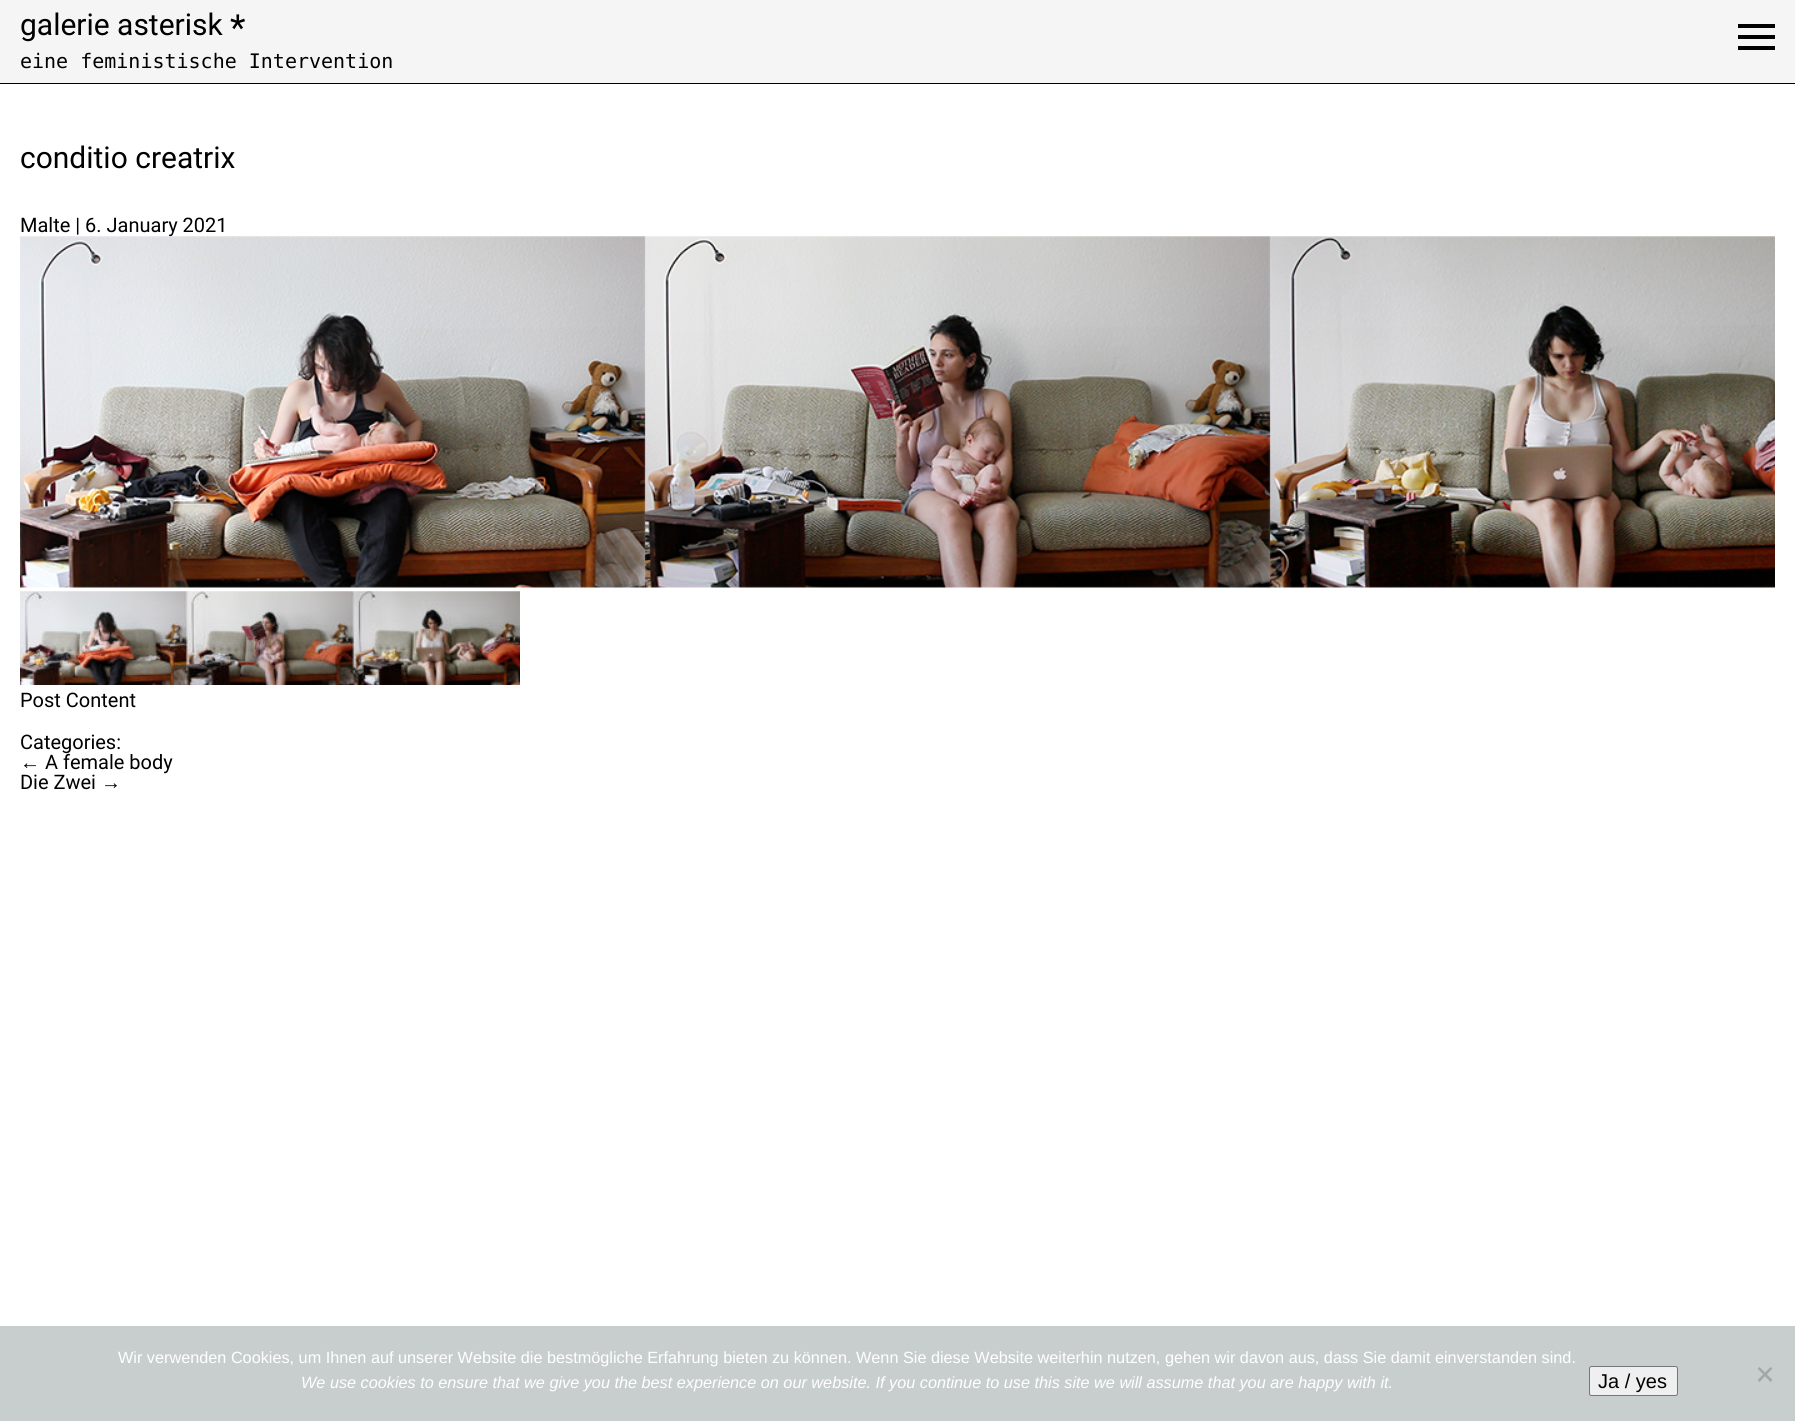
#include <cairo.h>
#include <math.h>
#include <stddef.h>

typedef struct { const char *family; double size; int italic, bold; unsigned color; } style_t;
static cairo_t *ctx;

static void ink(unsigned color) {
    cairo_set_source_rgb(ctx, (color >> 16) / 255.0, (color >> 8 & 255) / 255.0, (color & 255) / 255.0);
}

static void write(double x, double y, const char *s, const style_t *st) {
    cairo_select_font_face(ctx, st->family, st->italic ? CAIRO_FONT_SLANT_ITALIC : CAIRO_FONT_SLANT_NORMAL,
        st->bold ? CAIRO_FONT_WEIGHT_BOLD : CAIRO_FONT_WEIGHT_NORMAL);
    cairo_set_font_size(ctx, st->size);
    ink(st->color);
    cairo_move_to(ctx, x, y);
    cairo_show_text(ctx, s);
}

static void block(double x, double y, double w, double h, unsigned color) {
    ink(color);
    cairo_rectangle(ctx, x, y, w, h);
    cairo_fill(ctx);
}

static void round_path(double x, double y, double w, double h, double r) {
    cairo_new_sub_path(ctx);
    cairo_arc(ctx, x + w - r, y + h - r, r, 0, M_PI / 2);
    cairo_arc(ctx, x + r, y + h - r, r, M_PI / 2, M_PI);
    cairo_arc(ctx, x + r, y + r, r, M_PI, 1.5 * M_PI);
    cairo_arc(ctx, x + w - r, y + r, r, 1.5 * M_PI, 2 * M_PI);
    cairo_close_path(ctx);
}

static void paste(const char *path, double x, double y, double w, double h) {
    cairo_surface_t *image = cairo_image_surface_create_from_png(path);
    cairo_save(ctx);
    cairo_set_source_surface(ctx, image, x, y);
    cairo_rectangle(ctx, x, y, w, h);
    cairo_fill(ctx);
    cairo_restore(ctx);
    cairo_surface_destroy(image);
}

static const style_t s1 = {"Roboto", 30, 0, 0, 0x000000};
static const style_t s2 = {"Roboto", 36, 0, 0, 0x000000};
static const style_t s3 = {"DejaVu Sans Mono", 20, 0, 0, 0x000000};
static const style_t s4 = {"Roboto", 20, 0, 0, 0x000000};
static const style_t s5 = {"Liberation Serif", 20, 0, 0, 0x000000};
static const style_t s6 = {"Liberation Sans", 16.25, 0, 0, 0xffffff};
static const style_t s7 = {"Liberation Sans", 16.25, 1, 0, 0xffffff};
static const style_t s8 = {"Liberation Sans", 20, 0, 0, 0x000000};

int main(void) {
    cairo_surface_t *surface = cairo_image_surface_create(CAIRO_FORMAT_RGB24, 1795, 1421);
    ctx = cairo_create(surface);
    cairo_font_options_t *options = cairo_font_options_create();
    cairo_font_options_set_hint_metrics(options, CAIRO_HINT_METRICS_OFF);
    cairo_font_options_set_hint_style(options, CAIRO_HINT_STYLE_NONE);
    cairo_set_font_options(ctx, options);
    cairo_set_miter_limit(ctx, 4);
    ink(0xffffff);
    cairo_paint(ctx);
    block(0, 0, 1795, 83, 0xf5f5f5);
    block(0, 83, 1795, 1, 0x000000);
    write(20, 35, "galerie asterisk", &s1);
    write(230, 40, "*", &s2);
    write(20, 68, "eine feministische Intervention", &s3);
    block(1738, 24, 37, 4, 0x000000);
    block(1738, 35, 37, 4, 0x000000);
    block(1738, 46, 37, 4, 0x000000);
    write(20, 168, "conditio creatrix", &s1);
    write(20, 232, "Malte | 6. January 2021", &s4);
    paste("pic1.png", 20, 236, 1755, 352);
    paste("pic2.png", 20, 591, 500, 94);
    write(20, 707, "Post Content", &s4);
    write(20, 749, "Categories:", &s4);
    write(20, 769, "←", &s5);
    write(45, 769, "A female body", &s4);
    write(20, 789, "Die Zwei", &s4);
    write(101, 789, "→", &s5);
    block(0, 1326, 1795, 95, 0xc8cece);
    write(118, 1363, "Wir verwenden Cookies, um Ihnen auf unserer Website die bestmögliche Erfahrung bieten zu können. Wenn Sie diese Website weiterhin nutzen, gehen wir davon aus, dass Sie damit einverstanden sind.", &s6);
    write(301, 1388, "We use cookies to ensure that we give you the best experience on our website. If you continue to use this site we will assume that you are happy with it.", &s7);
    ink(0xefefef);
    round_path(1589.5, 1366.5, 88, 29, 2);
    cairo_fill_preserve(ctx);
    ink(0x767676);
    cairo_set_line_width(ctx, 1);
    cairo_stroke(ctx);
    write(1598, 1388, "Ja / yes", &s8);
    ink(0xa4a7a7);
    cairo_new_path(ctx);
    cairo_move_to(ctx, 1770.5, 1367);
    cairo_line_to(ctx, 1772.5, 1368.5);
    cairo_line_to(ctx, 1759.5, 1382);
    cairo_line_to(ctx, 1757.5, 1380);
    cairo_close_path(ctx);
    cairo_fill(ctx);
    cairo_new_path(ctx);
    cairo_move_to(ctx, 1757.5, 1368.5);
    cairo_line_to(ctx, 1759.5, 1367);
    cairo_line_to(ctx, 1772.5, 1380);
    cairo_line_to(ctx, 1770.5, 1382);
    cairo_close_path(ctx);
    cairo_fill(ctx);
    cairo_surface_write_to_png(surface, "screenshot.png");
    cairo_font_options_destroy(options);
    cairo_destroy(ctx);
    cairo_surface_destroy(surface);
    return 0;
}
